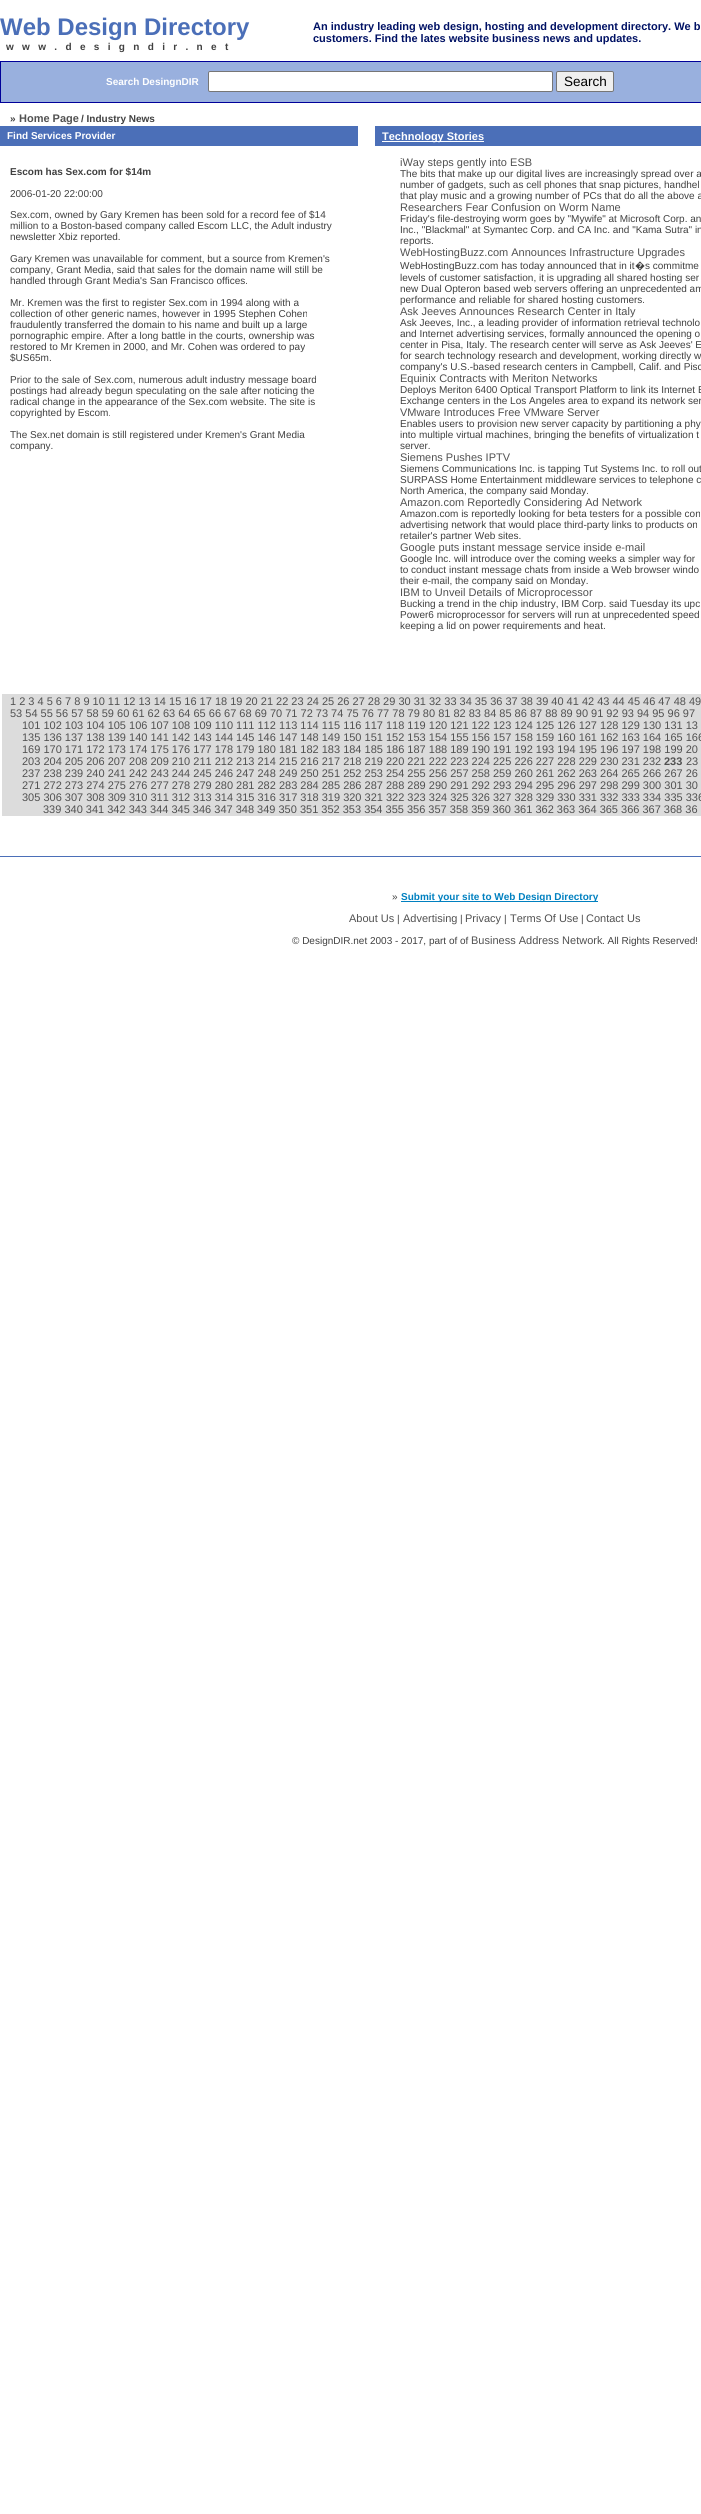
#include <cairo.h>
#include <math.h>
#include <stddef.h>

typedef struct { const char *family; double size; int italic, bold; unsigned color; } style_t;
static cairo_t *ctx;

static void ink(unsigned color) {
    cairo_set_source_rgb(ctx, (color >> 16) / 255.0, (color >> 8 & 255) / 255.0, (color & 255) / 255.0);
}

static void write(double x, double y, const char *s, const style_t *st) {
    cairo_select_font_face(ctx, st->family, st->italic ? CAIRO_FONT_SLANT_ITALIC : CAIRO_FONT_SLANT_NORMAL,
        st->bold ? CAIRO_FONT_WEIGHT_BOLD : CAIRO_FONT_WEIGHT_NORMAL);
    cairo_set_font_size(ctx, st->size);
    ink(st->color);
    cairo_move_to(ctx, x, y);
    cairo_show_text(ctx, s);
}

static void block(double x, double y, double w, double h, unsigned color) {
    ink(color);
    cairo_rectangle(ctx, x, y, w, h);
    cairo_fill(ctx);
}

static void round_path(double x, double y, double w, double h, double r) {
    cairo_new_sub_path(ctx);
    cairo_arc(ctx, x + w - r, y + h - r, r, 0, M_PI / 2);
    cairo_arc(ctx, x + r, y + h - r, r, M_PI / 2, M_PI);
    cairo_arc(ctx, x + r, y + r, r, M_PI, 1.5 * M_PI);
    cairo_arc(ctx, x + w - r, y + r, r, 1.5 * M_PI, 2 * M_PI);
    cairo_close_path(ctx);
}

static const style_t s1 = {"Liberation Sans", 24, 0, 1, 0x4b6fb8};
static const style_t s2 = {"Liberation Sans", 10, 0, 1, 0x404040};
static const style_t s3 = {"Liberation Sans", 11, 0, 1, 0x001164};
static const style_t s4 = {"Liberation Sans", 10, 0, 1, 0xffffff};
static const style_t s5 = {"Liberation Sans", 13.5, 0, 0, 0x000000};
static const style_t s6 = {"Liberation Sans", 11, 0, 1, 0x515151};
static const style_t s7 = {"Liberation Sans", 11, 0, 1, 0xffffff};
static const style_t s8 = {"Liberation Sans", 10, 0, 0, 0x404040};
static const style_t s9 = {"Liberation Sans", 11, 0, 0, 0x515151};
static const style_t s10 = {"Noto Sans", 10, 0, 0, 0x404040};
static const style_t s11 = {"Liberation Sans", 10, 0, 1, 0x0080c0};

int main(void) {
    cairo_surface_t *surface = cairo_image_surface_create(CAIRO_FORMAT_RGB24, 701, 2514);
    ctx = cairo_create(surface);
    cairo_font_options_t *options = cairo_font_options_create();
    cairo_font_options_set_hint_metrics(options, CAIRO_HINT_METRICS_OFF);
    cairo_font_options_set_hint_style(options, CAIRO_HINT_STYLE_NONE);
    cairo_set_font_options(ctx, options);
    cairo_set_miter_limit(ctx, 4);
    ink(0xffffff);
    cairo_paint(ctx);
    write(0, 35, "Web Design Directory", &s1);
    write(6, 50, "w   w   w   .   d   e   s   i   g   n   d   i   r   .   n   e   t", &s2);
    write(313, 30, "An industry leading web design, hosting and development directory. We b", &s3);
    write(313, 42, "customers. Find the lates website business news and updates.", &s3);
    block(0, 61, 701, 42, 0x000099);
    block(1, 62, 700, 40, 0x99b0de);
    write(106, 85, "Search DesingnDIR", &s4);
    round_path(208.5, 71.5, 344, 20, 1.5);
    cairo_fill_preserve(ctx);
    ink(0x767676);
    cairo_set_line_width(ctx, 1);
    cairo_stroke(ctx);
    ink(0xefefef);
    round_path(556.5, 71.5, 57, 20, 1.5);
    cairo_fill_preserve(ctx);
    ink(0x767676);
    cairo_stroke(ctx);
    write(564, 86, "Search", &s5);
    write(10, 122, "»", &s2);
    write(19, 122, "Home Page", &s6);
    write(81, 122, "/ Industry News", &s2);
    block(0, 126, 358, 20, 0x4b6fb8);
    write(7, 139, "Find Services Provider", &s4);
    block(375, 126, 326, 20, 0x4b6fb8);
    block(382, 141, 102, 1, 0xffffff);
    write(382, 140, "Technology Stories", &s7);
    write(10, 175, "Escom has Sex.com for $14m", &s2);
    write(10, 197, "2006-01-20 22:00:00", &s8);
    write(10, 218, "Sex.com, owned by Gary Kremen has been sold for a record fee of $14", &s8);
    write(10, 229, "million to a Boston-based company called Escom LLC, the Adult industry", &s8);
    write(10, 240, "newsletter Xbiz reported.", &s8);
    write(10, 262, "Gary Kremen was unavailable for comment, but a source from Kremen's", &s8);
    write(10, 273, "company, Grant Media, said that sales for the domain name will still be", &s8);
    write(10, 284, "handled through Grant Media's San Francisco offices.", &s8);
    write(10, 306, "Mr. Kremen was the first to register Sex.com in 1994 along with a", &s8);
    write(10, 317, "collection of other generic names, however in 1995 Stephen Cohen", &s8);
    write(10, 328, "fraudulently transferred the domain to his name and built up a large", &s8);
    write(10, 339, "pornographic empire. After a long battle in the courts, ownership was", &s8);
    write(10, 350, "restored to Mr Kremen in 2000, and Mr. Cohen was ordered to pay", &s8);
    write(10, 361, "$US65m.", &s8);
    write(10, 383, "Prior to the sale of Sex.com, numerous adult industry message board", &s8);
    write(10, 394, "postings had already begun speculating on the sale after noticing the", &s8);
    write(10, 405, "radical change in the appearance of the Sex.com website. The site is", &s8);
    write(10, 416, "copyrighted by Escom.", &s8);
    write(10, 438, "The Sex.net domain is still registered under Kremen's Grant Media", &s8);
    write(10, 449, "company.", &s8);
    write(400, 166, "iWay steps gently into ESB", &s9);
    write(400, 177, "The bits that make up our digital lives are increasingly spread over a", &s8);
    write(400, 188, "number of gadgets, such as cell phones that snap pictures, handhel", &s8);
    write(400, 199, "that play music and a growing number of PCs that do all the above a", &s8);
    write(400, 211, "Researchers Fear Confusion on Worm Name", &s9);
    write(400, 222, "Friday's file-destroying worm goes by \"Mywife\" at Microsoft Corp. an", &s8);
    write(400, 233, "Inc., \"Blackmal\" at Symantec Corp. and CA Inc. and \"Kama Sutra\" in", &s8);
    write(400, 244, "reports.", &s8);
    write(400, 256, "WebHostingBuzz.com Announces Infrastructure Upgrades", &s9);
    write(400, 269, "WebHostingBuzz.com has today announced that in it", &s8);
    write(635, 269, "�", &s10);
    write(645, 269, "s commitme", &s8);
    write(400, 281, "levels of customer satisfaction, it is upgrading all shared hosting ser", &s8);
    write(400, 292, "new Dual Opteron based web servers offering an unprecedented am", &s8);
    write(400, 303, "performance and reliable for shared hosting customers.", &s8);
    write(400, 315, "Ask Jeeves Announces Research Center in Italy", &s9);
    write(400, 326, "Ask Jeeves, Inc., a leading provider of information retrieval technolo", &s8);
    write(400, 337, "and Internet advertising services, formally announced the opening o", &s8);
    write(400, 348, "center in Pisa, Italy. The research center will serve as Ask Jeeves' E", &s8);
    write(400, 359, "for search technology research and development, working directly w", &s8);
    write(400, 370, "company's U.S.-based research centers in Campbell, Calif. and Pisc", &s8);
    write(400, 382, "Equinix Contracts with Meriton Networks", &s9);
    write(400, 393, "Deploys Meriton 6400 Optical Transport Platform to link its Internet B", &s8);
    write(400, 404, "Exchange centers in the Los Angeles area to expand its network ser", &s8);
    write(400, 416, "VMware Introduces Free VMware Server", &s9);
    write(400, 427, "Enables users to provision new server capacity by partitioning a phy", &s8);
    write(400, 438, "into multiple virtual machines, bringing the benefits of virtualization t", &s8);
    write(400, 449, "server.", &s8);
    write(400, 461, "Siemens Pushes IPTV", &s9);
    write(400, 472, "Siemens Communications Inc. is tapping Tut Systems Inc. to roll out", &s8);
    write(400, 483, "SURPASS Home Entertainment middleware services to telephone c", &s8);
    write(400, 494, "North America, the company said Monday.", &s8);
    write(400, 506, "Amazon.com Reportedly Considering Ad Network", &s9);
    write(400, 517, "Amazon.com is reportedly looking for beta testers for a possible con", &s8);
    write(400, 528, "advertising network that would place third-party links to products on", &s8);
    write(400, 539, "retailer's partner Web sites.", &s8);
    write(400, 551, "Google puts instant message service inside e-mail", &s9);
    write(400, 562, "Google Inc. will introduce over the coming weeks a simpler way for", &s8);
    write(400, 573, "to conduct instant message chats from inside a Web browser windo", &s8);
    write(400, 584, "their e-mail, the company said on Monday.", &s8);
    write(400, 596, "IBM to Unveil Details of Microprocessor", &s9);
    write(400, 607, "Bucking a trend in the chip industry, IBM Corp. said Tuesday its upc", &s8);
    write(400, 618, "Power6 microprocessor for servers will run at unprecedented speed", &s8);
    write(400, 629, "keeping a lid on power requirements and heat.", &s8);
    block(2, 694, 699, 122, 0xdcdcdc);
    write(10, 705, "1 2 3 4 5 6 7 8 9 10 11 12 13 14 15 16 17 18 19 20 21 22 23 24 25 26 27 28 29 30 31 32 33 34 35 36 37 38 39 40 41 42 43 44 45 46 47 48 49", &s9);
    write(10, 717, "53 54 55 56 57 58 59 60 61 62 63 64 65 66 67 68 69 70 71 72 73 74 75 76 77 78 79 80 81 82 83 84 85 86 87 88 89 90 91 92 93 94 95 96 97", &s9);
    write(22, 729, "101 102 103 104 105 106 107 108 109 110 111 112 113 114 115 116 117 118 119 120 121 122 123 124 125 126 127 128 129 130 131 13", &s9);
    write(22, 741, "135 136 137 138 139 140 141 142 143 144 145 146 147 148 149 150 151 152 153 154 155 156 157 158 159 160 161 162 163 164 165 166", &s9);
    write(22, 753, "169 170 171 172 173 174 175 176 177 178 179 180 181 182 183 184 185 186 187 188 189 190 191 192 193 194 195 196 197 198 199 20", &s9);
    write(22, 765, "203 204 205 206 207 208 209 210 211 212 213 214 215 216 217 218 219 220 221 222 223 224 225 226 227 228 229 230 231 232", &s9);
    write(664, 765, "233", &s6);
    write(686, 765, "23", &s9);
    write(22, 777, "237 238 239 240 241 242 243 244 245 246 247 248 249 250 251 252 253 254 255 256 257 258 259 260 261 262 263 264 265 266 267 26", &s9);
    write(22, 789, "271 272 273 274 275 276 277 278 279 280 281 282 283 284 285 286 287 288 289 290 291 292 293 294 295 296 297 298 299 300 301 30", &s9);
    write(22, 801, "305 306 307 308 309 310 311 312 313 314 315 316 317 318 319 320 321 322 323 324 325 326 327 328 329 330 331 332 333 334 335 336", &s9);
    write(43, 813, "339 340 341 342 343 344 345 346 347 348 349 350 351 352 353 354 355 356 357 358 359 360 361 362 363 364 365 366 367 368 36", &s9);
    block(0, 856, 701, 1, 0x4b6fb8);
    write(392, 900, "»", &s8);
    block(401, 901, 197, 1, 0x0080c0);
    write(401, 900, "Submit your site to Web Design Directory", &s11);
    write(349, 922, "About Us", &s9);
    write(397, 922, "|", &s8);
    write(403, 922, "Advertising", &s9);
    write(460, 922, "|", &s8);
    write(465, 922, "Privacy", &s9);
    write(504, 922, "|", &s8);
    write(510, 922, "Terms Of Use", &s9);
    write(581, 922, "|", &s8);
    write(586, 922, "Contact Us", &s9);
    write(292, 944, "© DesignDIR.net 2003 - 2017, part of of", &s8);
    write(471, 944, "Business Address Network", &s9);
    write(602, 944, ". All Rights Reserved!", &s8);
    cairo_surface_write_to_png(surface, "screenshot.png");
    cairo_font_options_destroy(options);
    cairo_destroy(ctx);
    cairo_surface_destroy(surface);
    return 0;
}
